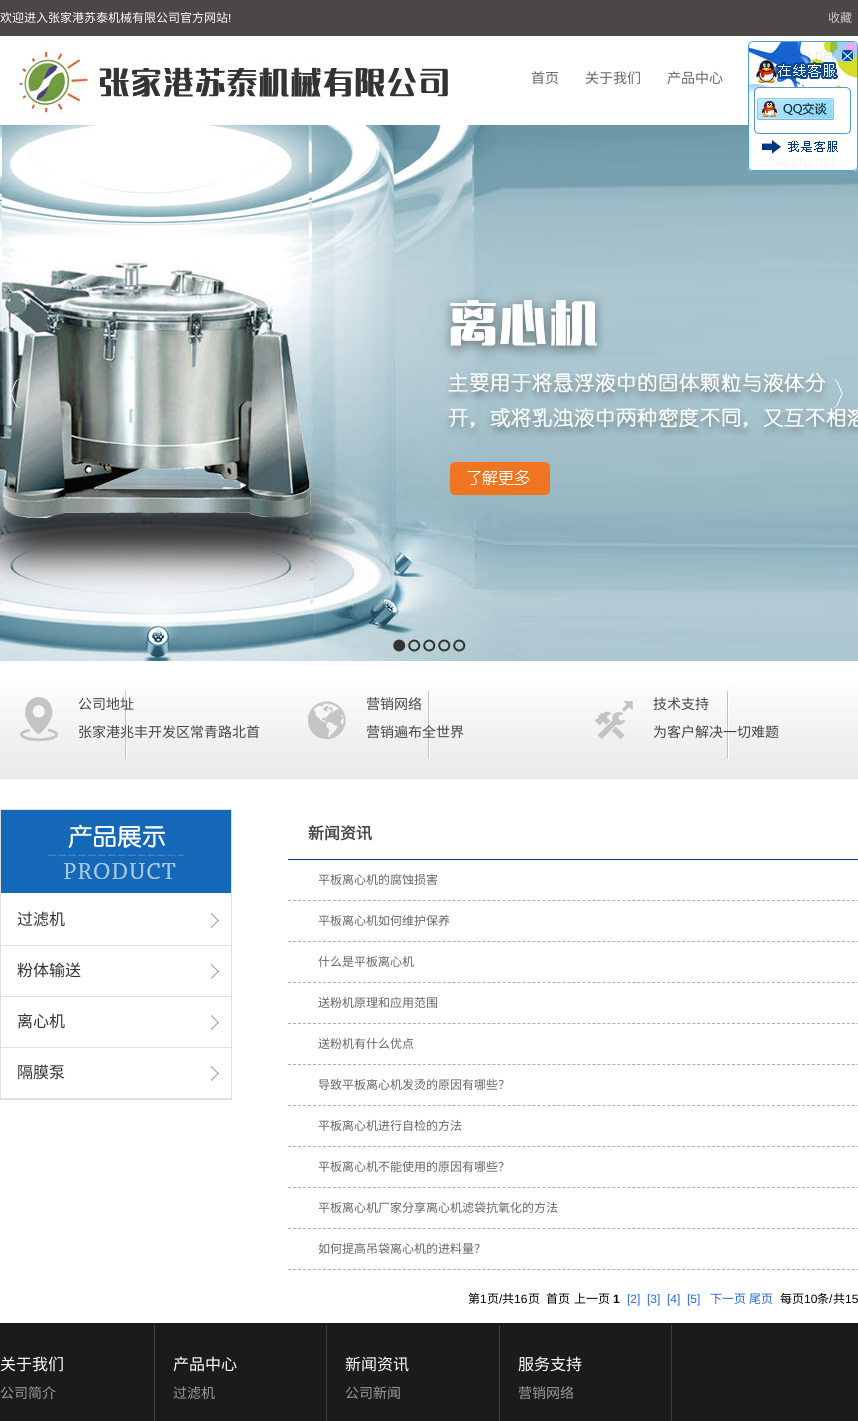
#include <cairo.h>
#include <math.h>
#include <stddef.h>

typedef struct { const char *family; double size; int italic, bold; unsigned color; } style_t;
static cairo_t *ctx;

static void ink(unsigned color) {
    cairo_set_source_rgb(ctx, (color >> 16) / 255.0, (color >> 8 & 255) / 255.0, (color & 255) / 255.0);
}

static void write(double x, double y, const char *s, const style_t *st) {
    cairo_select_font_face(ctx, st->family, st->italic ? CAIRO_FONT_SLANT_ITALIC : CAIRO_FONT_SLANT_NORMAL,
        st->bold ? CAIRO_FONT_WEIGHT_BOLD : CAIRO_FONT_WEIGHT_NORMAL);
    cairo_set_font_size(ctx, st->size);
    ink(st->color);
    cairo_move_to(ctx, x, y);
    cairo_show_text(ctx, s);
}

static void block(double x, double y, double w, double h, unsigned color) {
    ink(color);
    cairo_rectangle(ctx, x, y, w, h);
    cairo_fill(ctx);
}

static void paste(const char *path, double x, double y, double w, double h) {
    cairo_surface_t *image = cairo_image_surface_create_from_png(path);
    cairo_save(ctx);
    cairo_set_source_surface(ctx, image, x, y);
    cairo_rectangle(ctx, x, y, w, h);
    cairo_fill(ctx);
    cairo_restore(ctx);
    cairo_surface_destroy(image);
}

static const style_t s1 = {"Noto Sans CJK SC", 12, 0, 0, 0xffffff};
static const style_t s2 = {"Liberation Sans", 12, 0, 0, 0xffffff};
static const style_t s3 = {"Noto Sans CJK SC", 12, 0, 0, 0xcccccc};
static const style_t s4 = {"Noto Sans CJK SC", 14, 0, 0, 0x666666};
static const style_t s5 = {"Noto Sans CJK SC", 14, 0, 0, 0x464646};
static const style_t s6 = {"Noto Sans CJK SC", 16, 0, 0, 0x333333};
static const style_t s7 = {"Noto Sans CJK SC", 16, 0, 1, 0x464646};
static const style_t s8 = {"Noto Sans CJK SC", 12, 0, 0, 0x666666};
static const style_t s9 = {"Noto Sans CJK SC", 12, 0, 0, 0x000000};
static const style_t s10 = {"Liberation Sans", 12, 0, 0, 0x000000};
static const style_t s11 = {"Liberation Sans", 12, 0, 1, 0x000000};
static const style_t s12 = {"Liberation Sans", 12, 0, 0, 0x2068dc};
static const style_t s13 = {"Noto Sans CJK SC", 12, 0, 0, 0x2068dc};
static const style_t s14 = {"Noto Sans CJK SC", 16, 0, 0, 0xffffff};
static const style_t s15 = {"Noto Sans CJK SC", 14, 0, 0, 0x999999};

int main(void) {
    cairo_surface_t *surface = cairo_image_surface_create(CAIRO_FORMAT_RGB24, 858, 1421);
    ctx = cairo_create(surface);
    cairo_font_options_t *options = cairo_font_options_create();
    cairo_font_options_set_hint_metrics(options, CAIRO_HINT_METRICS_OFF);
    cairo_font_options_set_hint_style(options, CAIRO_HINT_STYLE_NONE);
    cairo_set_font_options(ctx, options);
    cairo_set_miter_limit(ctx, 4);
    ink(0xffffff);
    cairo_paint(ctx);
    block(0, 0, 858, 36, 0x4b4747);
    write(0, 22, "欢迎进入张家港苏泰机械有限公司官方网站", &s1);
    write(228, 22, "!", &s2);
    write(828, 22, "收藏", &s3);
    paste("pic1.png", 16, 47, 432, 69);
    write(531, 83, "首页", &s4);
    write(585, 83, "关于我们", &s4);
    write(667, 83, "产品中心", &s4);
    paste("pic2.png", 748, 41, 110, 52);
    paste("pic6.png", 0, 125, 858, 536);
    paste("pic3.png", 748, 93, 110, 35);
    paste("pic4.png", 757, 98, 77, 22);
    paste("pic5.png", 748, 128, 110, 43);
    paste("pic7.png", 393, 639, 13, 13);
    paste("pic8.png", 408, 639, 13, 13);
    paste("pic9.png", 423, 639, 13, 13);
    paste("pic10.png", 438, 639, 13, 13);
    paste("pic11.png", 453, 639, 13, 13);
    paste("pic12.png", 10, 379, 11, 29);
    paste("pic13.png", 832, 379, 11, 29);
    paste("pic14.png", 0, 687, 858, 92);
    paste("pic15.png", 20, 697, 38, 44);
    write(78, 709, "公司地址", &s5);
    write(78, 737, "张家港兆丰开发区常青路北首", &s5);
    paste("pic16.png", 308, 701, 38, 38);
    write(366, 709, "营销网络", &s5);
    write(366, 737, "营销遍布全世界", &s5);
    paste("pic17.png", 595, 701, 38, 38);
    write(653, 709, "技术支持", &s5);
    write(653, 737, "为客户解决一切难题", &s5);
    cairo_rectangle(ctx, 0.5, 809.5, 231, 290);
    ink(0xdfdfdf);
    cairo_set_line_width(ctx, 1);
    cairo_stroke(ctx);
    paste("pic18.png", 1, 810, 230, 83);
    block(1, 945, 230, 1, 0xdfdfdf);
    paste("pic19.png", 211, 913, 8, 15);
    write(17, 925, "过滤机", &s6);
    block(1, 996, 230, 1, 0xdfdfdf);
    paste("pic19.png", 211, 964, 8, 15);
    write(17, 976, "粉体输送", &s6);
    block(1, 1047, 230, 1, 0xdfdfdf);
    paste("pic19.png", 211, 1015, 8, 15);
    write(17, 1027, "离心机", &s6);
    block(1, 1098, 230, 1, 0xdfdfdf);
    paste("pic19.png", 211, 1066, 8, 15);
    write(17, 1078, "隔膜泵", &s6);
    block(288, 859, 570, 1, 0x05398c);
    write(308, 839, "新闻资讯", &s7);
    cairo_new_path(ctx);
    cairo_move_to(ctx, 288, 900.5);
    cairo_line_to(ctx, 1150, 900.5);
    ink(0xafafaf);
    cairo_set_dash(ctx, (double[]){3, 1.99}, 2, 0);
    cairo_stroke(ctx);
    write(318, 884, "平板离心机的腐蚀损害", &s8);
    cairo_new_path(ctx);
    cairo_move_to(ctx, 288, 941.5);
    cairo_line_to(ctx, 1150, 941.5);
    ink(0xafafaf);
    cairo_stroke(ctx);
    write(318, 925, "平板离心机如何维护保养", &s8);
    cairo_new_path(ctx);
    cairo_move_to(ctx, 288, 982.5);
    cairo_line_to(ctx, 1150, 982.5);
    ink(0xafafaf);
    cairo_stroke(ctx);
    write(318, 966, "什么是平板离心机", &s8);
    cairo_new_path(ctx);
    cairo_move_to(ctx, 288, 1023.5);
    cairo_line_to(ctx, 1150, 1023.5);
    ink(0xafafaf);
    cairo_stroke(ctx);
    write(318, 1007, "送粉机原理和应用范围", &s8);
    cairo_new_path(ctx);
    cairo_move_to(ctx, 288, 1064.5);
    cairo_line_to(ctx, 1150, 1064.5);
    ink(0xafafaf);
    cairo_stroke(ctx);
    write(318, 1048, "送粉机有什么优点", &s8);
    cairo_new_path(ctx);
    cairo_move_to(ctx, 288, 1105.5);
    cairo_line_to(ctx, 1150, 1105.5);
    ink(0xafafaf);
    cairo_stroke(ctx);
    write(318, 1089, "导致平板离心机发烫的原因有哪些？", &s8);
    cairo_new_path(ctx);
    cairo_move_to(ctx, 288, 1146.5);
    cairo_line_to(ctx, 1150, 1146.5);
    ink(0xafafaf);
    cairo_stroke(ctx);
    write(318, 1130, "平板离心机进行自检的方法", &s8);
    cairo_new_path(ctx);
    cairo_move_to(ctx, 288, 1187.5);
    cairo_line_to(ctx, 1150, 1187.5);
    ink(0xafafaf);
    cairo_stroke(ctx);
    write(318, 1171, "平板离心机不能使用的原因有哪些？", &s8);
    cairo_new_path(ctx);
    cairo_move_to(ctx, 288, 1228.5);
    cairo_line_to(ctx, 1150, 1228.5);
    ink(0xafafaf);
    cairo_stroke(ctx);
    write(318, 1212, "平板离心机厂家分享离心机滤袋抗氧化的方法", &s8);
    cairo_new_path(ctx);
    cairo_move_to(ctx, 288, 1269.5);
    cairo_line_to(ctx, 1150, 1269.5);
    ink(0xafafaf);
    cairo_stroke(ctx);
    write(318, 1253, "如何提高吊袋离心机的进料量？", &s8);
    write(468, 1303, "第", &s9);
    write(480, 1303, "1", &s10);
    write(487, 1303, "页", &s9);
    write(499, 1303, "/", &s10);
    write(502, 1303, "共", &s9);
    write(514, 1303, "16", &s10);
    write(528, 1303, "页", &s9);
    write(546, 1303, "首页", &s9);
    write(574, 1303, "上一页", &s9);
    write(613, 1303, "1", &s11);
    write(627, 1303, "[2]", &s12);
    write(647, 1303, "[3]", &s12);
    write(667, 1303, "[4]", &s12);
    write(687, 1303, "[5]", &s12);
    write(710, 1303, "下一页", &s13);
    write(749, 1303, "尾页", &s13);
    write(780, 1303, "每页", &s9);
    write(804, 1303, "10", &s10);
    write(817, 1303, "条", &s9);
    write(829, 1303, "/", &s10);
    write(833, 1303, "共", &s9);
    write(845, 1303, "15", &s10);
    block(0, 1323, 858, 98, 0x1b1b1b);
    write(0, 1370, "关于我们", &s14);
    write(0, 1398, "公司简介", &s15);
    block(154, 1325, 1, 96, 0x424242);
    write(173, 1370, "产品中心", &s14);
    write(173, 1398, "过滤机", &s15);
    block(326, 1325, 1, 96, 0x424242);
    write(345, 1370, "新闻资讯", &s14);
    write(345, 1398, "公司新闻", &s15);
    block(499, 1325, 1, 96, 0x424242);
    write(518, 1370, "服务支持", &s14);
    write(518, 1398, "营销网络", &s15);
    block(671, 1325, 1, 96, 0x424242);
    cairo_surface_write_to_png(surface, "screenshot.png");
    cairo_font_options_destroy(options);
    cairo_destroy(ctx);
    cairo_surface_destroy(surface);
    return 0;
}
